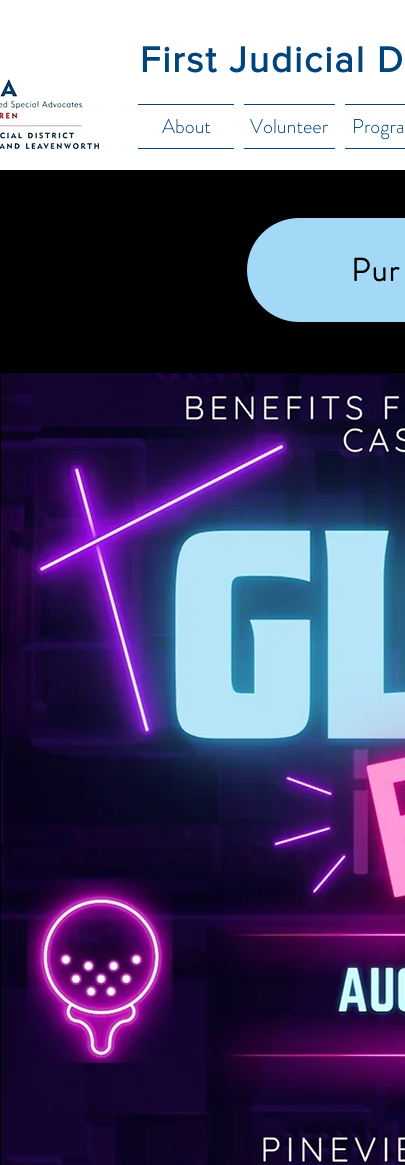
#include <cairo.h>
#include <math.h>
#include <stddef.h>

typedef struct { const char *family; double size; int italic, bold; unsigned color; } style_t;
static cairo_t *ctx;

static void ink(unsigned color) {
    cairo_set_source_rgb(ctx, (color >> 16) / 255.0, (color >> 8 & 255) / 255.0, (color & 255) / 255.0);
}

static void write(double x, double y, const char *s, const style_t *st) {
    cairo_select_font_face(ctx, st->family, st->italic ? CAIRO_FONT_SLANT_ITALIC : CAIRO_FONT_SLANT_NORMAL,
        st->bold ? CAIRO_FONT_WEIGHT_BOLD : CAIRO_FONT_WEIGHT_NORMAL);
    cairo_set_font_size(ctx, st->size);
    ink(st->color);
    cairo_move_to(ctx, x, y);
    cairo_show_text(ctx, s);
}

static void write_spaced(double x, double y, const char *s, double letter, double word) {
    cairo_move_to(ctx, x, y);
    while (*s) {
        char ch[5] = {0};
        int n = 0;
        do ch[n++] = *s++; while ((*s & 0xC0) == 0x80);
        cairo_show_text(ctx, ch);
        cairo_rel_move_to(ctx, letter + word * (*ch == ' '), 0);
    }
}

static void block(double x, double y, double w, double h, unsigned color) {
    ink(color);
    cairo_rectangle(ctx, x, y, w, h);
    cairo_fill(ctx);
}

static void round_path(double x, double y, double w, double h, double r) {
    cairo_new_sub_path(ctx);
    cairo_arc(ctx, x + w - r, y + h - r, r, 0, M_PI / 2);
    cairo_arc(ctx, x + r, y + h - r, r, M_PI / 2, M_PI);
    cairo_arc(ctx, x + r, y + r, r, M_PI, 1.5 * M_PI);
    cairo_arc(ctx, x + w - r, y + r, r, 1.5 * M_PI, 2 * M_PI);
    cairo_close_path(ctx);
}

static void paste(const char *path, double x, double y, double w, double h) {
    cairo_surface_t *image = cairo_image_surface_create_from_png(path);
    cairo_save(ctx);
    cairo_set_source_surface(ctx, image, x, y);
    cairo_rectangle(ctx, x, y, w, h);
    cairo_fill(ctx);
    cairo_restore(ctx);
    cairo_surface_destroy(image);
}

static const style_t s1 = {"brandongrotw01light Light", 20, 0, 0, 0x00447c};

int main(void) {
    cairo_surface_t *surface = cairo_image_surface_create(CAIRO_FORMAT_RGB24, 405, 1165);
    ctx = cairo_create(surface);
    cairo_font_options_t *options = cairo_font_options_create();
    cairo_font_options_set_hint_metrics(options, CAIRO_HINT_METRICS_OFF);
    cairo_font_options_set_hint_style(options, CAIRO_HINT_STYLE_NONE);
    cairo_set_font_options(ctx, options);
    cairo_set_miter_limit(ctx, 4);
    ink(0xffffff);
    cairo_paint(ctx);
    cairo_select_font_face(ctx, "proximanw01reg", CAIRO_FONT_SLANT_NORMAL, CAIRO_FONT_WEIGHT_BOLD);
    cairo_set_font_size(ctx, 37);
    ink(0x00447c);
    write_spaced(140, 72, "First Judicial D", 1.8, 0);
    paste("pic1.png", 0, 79, 99, 70);
    block(138, 104, 96, 1, 0x00447c);
    block(138, 148, 96, 1, 0x00447c);
    write(162, 133, "About", &s1);
    block(244, 104, 91, 1, 0x00447c);
    block(244, 148, 91, 1, 0x00447c);
    write(250, 133, "Volunteer", &s1);
    block(345, 104, 60, 1, 0x00447c);
    block(345, 148, 60, 1, 0x00447c);
    write(352, 133, "Progra", &s1);
    block(0, 170, 405, 995, 0x000000);
    ink(0xa3d9f6);
    round_path(247, 218, 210, 104, 52);
    cairo_fill(ctx);
    cairo_select_font_face(ctx, "brandongrotw01light", CAIRO_FONT_SLANT_NORMAL, CAIRO_FONT_WEIGHT_BOLD);
    cairo_set_font_size(ctx, 32);
    ink(0x000000);
    write_spaced(351, 281, "Pur", 1.5, 0);
    paste("pic2.png", 1, 373, 404, 792);
    cairo_surface_write_to_png(surface, "screenshot.png");
    cairo_font_options_destroy(options);
    cairo_destroy(ctx);
    cairo_surface_destroy(surface);
    return 0;
}
